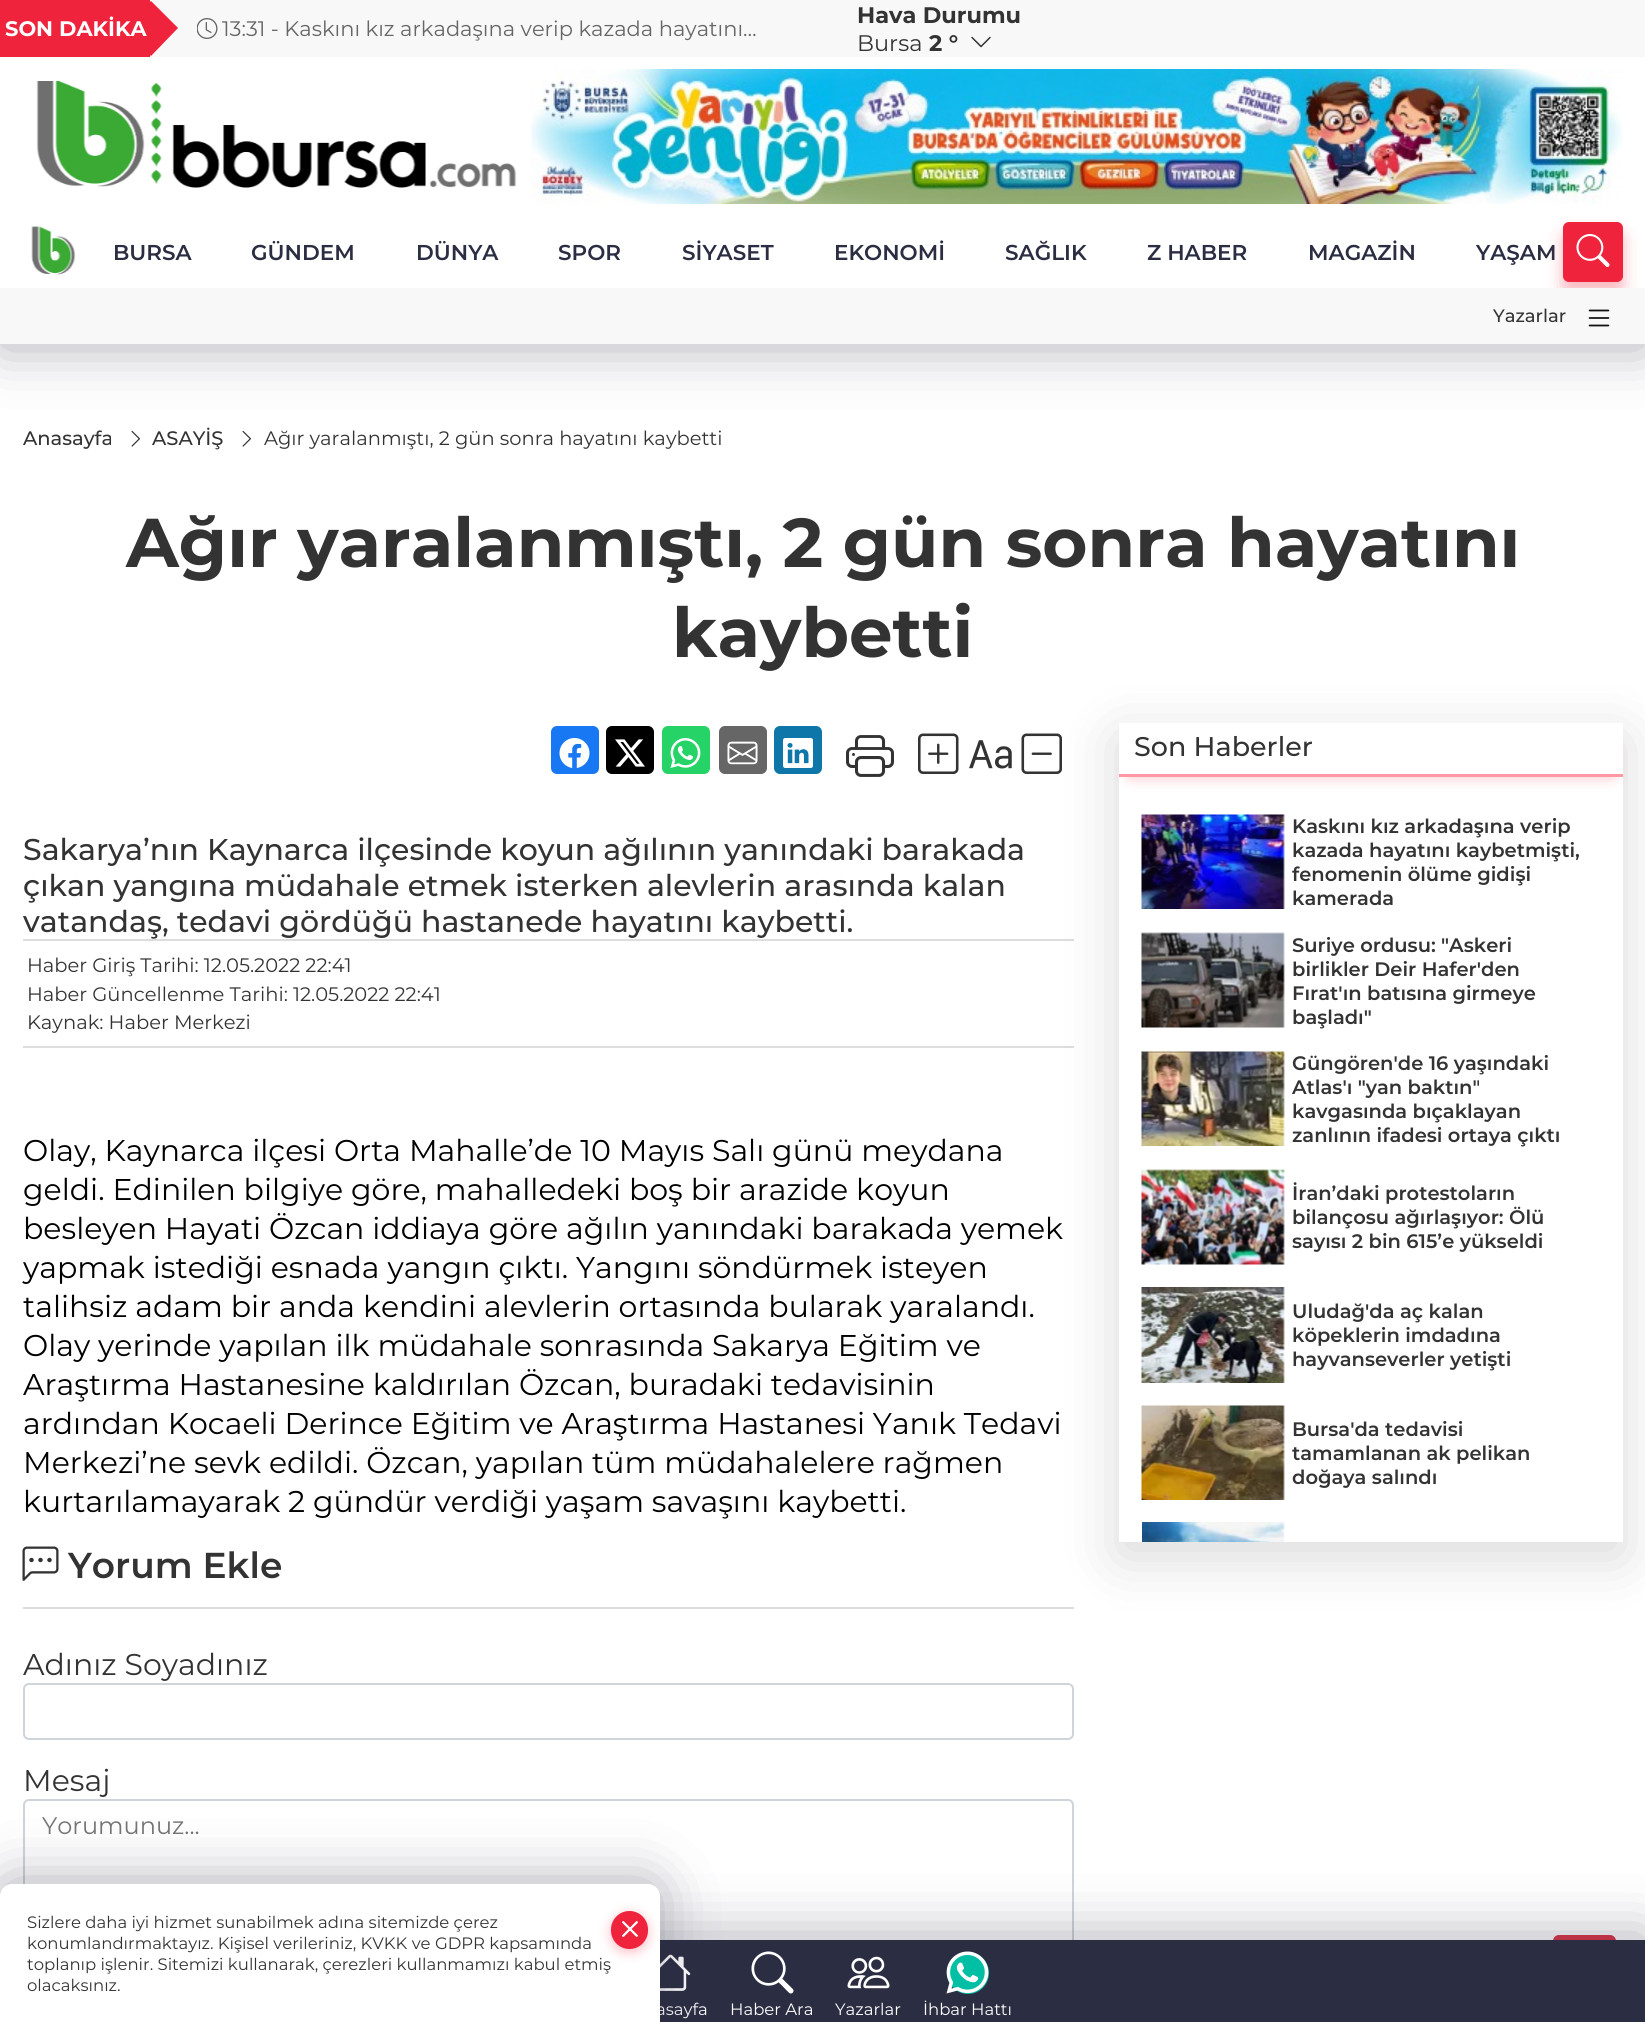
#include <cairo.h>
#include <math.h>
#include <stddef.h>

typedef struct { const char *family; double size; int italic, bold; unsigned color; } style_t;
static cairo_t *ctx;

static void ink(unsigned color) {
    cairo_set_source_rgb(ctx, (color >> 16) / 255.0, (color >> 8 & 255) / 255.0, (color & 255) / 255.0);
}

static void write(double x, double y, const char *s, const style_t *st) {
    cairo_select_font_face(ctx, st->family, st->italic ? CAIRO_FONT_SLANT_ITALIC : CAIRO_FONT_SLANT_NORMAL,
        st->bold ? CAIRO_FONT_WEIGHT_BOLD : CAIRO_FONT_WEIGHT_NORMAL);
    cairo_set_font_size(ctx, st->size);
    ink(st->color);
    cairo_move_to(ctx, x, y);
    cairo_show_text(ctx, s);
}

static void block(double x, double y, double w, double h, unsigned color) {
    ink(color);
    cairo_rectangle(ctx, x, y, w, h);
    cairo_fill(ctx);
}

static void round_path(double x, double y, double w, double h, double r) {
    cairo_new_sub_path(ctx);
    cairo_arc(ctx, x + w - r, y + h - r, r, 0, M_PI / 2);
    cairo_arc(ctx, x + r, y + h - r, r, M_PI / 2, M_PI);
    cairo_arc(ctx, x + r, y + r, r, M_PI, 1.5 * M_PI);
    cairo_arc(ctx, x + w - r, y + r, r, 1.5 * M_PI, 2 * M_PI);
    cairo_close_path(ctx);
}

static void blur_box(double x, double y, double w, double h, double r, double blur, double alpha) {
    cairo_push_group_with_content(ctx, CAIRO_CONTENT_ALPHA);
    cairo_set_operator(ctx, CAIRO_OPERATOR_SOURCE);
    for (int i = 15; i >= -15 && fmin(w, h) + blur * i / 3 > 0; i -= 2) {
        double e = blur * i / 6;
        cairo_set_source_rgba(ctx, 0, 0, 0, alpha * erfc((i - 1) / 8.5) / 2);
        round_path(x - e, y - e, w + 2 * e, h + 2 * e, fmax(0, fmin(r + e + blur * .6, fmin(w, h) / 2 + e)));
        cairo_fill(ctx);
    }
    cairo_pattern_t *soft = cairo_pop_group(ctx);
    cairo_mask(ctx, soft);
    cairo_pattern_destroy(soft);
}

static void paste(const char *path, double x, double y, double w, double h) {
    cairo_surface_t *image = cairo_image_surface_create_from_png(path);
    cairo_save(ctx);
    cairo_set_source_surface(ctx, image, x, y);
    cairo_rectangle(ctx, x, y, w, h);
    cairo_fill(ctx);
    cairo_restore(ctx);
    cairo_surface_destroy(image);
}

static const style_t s1 = {"Montserrat", 21, 0, 1, 0xffffff};
static const style_t s2 = {"Montserrat", 21, 0, 0, 0x666666};
static const style_t s3 = {"Montserrat", 22.5, 0, 1, 0x333333};
static const style_t s4 = {"Montserrat", 22.5, 0, 0, 0x333333};
static const style_t s5 = {"Montserrat SemiBold", 21.5, 0, 0, 0x2b2d42};
static const style_t s6 = {"Montserrat Medium", 18, 0, 0, 0x333333};
static const style_t s7 = {"Montserrat Medium", 19.5, 0, 0, 0x333333};
static const style_t s8 = {"Montserrat", 19.5, 0, 0, 0x333333};
static const style_t s9 = {"Montserrat", 69, 0, 1, 0x333333};
static const style_t s10 = {"Montserrat Medium", 30, 0, 0, 0x333333};
static const style_t s11 = {"Montserrat", 30, 0, 0, 0x000000};
static const style_t s12 = {"Montserrat SemiBold", 36, 0, 0, 0x333333};
static const style_t s13 = {"Montserrat", 30, 0, 0, 0x333333};
static const style_t s14 = {"Montserrat", 24, 0, 0, 0x757575};
static const style_t s15 = {"Montserrat Medium", 27, 0, 0, 0x333333};
static const style_t s16 = {"Montserrat SemiBold", 19.5, 0, 0, 0x333333};
static const style_t s17 = {"Montserrat", 16.5, 0, 0, 0xffffff};
static const style_t s18 = {"Montserrat", 16.5, 0, 0, 0x333333};

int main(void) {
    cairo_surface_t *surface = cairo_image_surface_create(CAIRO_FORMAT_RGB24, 1645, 2022);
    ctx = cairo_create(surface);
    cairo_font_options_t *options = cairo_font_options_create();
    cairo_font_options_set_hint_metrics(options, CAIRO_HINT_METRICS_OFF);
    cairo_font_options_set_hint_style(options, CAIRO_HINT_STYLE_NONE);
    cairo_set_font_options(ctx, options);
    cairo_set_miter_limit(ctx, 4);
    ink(0xffffff);
    cairo_paint(ctx);
    paste("pic8.png", 131, 430, 9, 17);
    paste("pic8.png", 242, 430, 9, 17);
    ink(0x2b2d42);
    blur_box(0, 5, 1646, 343, 0, 28.5, 0.36);
    block(0, 57, 1645, 231, 0xffffff);
    block(150, 0, 1495, 57, 0xf8f8f8);
    block(0, 0, 150, 57, 0xef233c);
    cairo_new_path(ctx);
    cairo_move_to(ctx, 151, 1);
    cairo_line_to(ctx, 178, 28);
    cairo_line_to(ctx, 151, 56);
    cairo_line_to(ctx, 123, 28);
    cairo_close_path(ctx);
    cairo_fill(ctx);
    write(5, 36, "SON DAKİKA", &s1);
    paste("pic1.png", 197, 18, 21, 21);
    write(222, 36, "13:31 - Kaskını kız arkadaşına verip kazada hayatını…", &s2);
    write(857, 23, "Hava Durumu", &s3);
    write(857, 51, "Bursa", &s4);
    write(929, 51, "2 °", &s3);
    paste("pic2.png", 971, 36, 20, 12);
    paste("pic3.png", 36, 81, 481, 107);
    paste("pic4.png", 531, 69, 1092, 135);
    paste("pic5.png", 31, 226, 45, 49);
    write(113, 260, "BURSA", &s5);
    write(251, 260, "GÜNDEM", &s5);
    write(416, 260, "DÜNYA", &s5);
    write(558, 260, "SPOR", &s5);
    write(682, 260, "SİYASET", &s5);
    write(834, 260, "EKONOMİ", &s5);
    write(1005, 260, "SAĞLIK", &s5);
    write(1147, 260, "Z HABER", &s5);
    write(1308, 260, "MAGAZİN", &s5);
    write(1476, 260, "YAŞAM", &s5);
    ink(0xef233c);
    blur_box(1563, 233, 60, 60, 6, 8, 0.18);
    blur_box(1563, 233, 60, 60, 6, 8, 0.18);
    ink(0xef233c);
    round_path(1563, 222, 60, 60, 6);
    cairo_fill(ctx);
    paste("pic6.png", 1576, 234, 34, 33);
    block(0, 288, 1645, 56, 0xf8f8f8);
    write(1493, 322, "Yazarlar", &s6);
    paste("pic7.png", 1588, 309, 22, 18);
    write(23, 445, "Anasayfa", &s7);
    write(152, 445, "ASAYİŞ", &s7);
    write(264, 445, "Ağır yaralanmıştı, 2 gün sonra hayatını kaybetti", &s8);
    write(126, 567, "Ağır yaralanmıştı, 2 gün sonra hayatını", &s9);
    write(672, 657, "kaybetti", &s9);
    ink(0x1877f2);
    round_path(551, 726, 48, 48, 6);
    cairo_fill(ctx);
    paste("pic9.png", 559, 738, 31, 30);
    ink(0x000000);
    round_path(606, 726, 48, 48, 6);
    cairo_fill(ctx);
    paste("pic10.png", 615, 739, 30, 28);
    ink(0x25d366);
    round_path(662, 726, 48, 48, 6);
    cairo_fill(ctx);
    paste("pic11.png", 670, 738, 31, 30);
    ink(0x666666);
    round_path(719, 726, 48, 48, 6);
    cairo_fill(ctx);
    paste("pic12.png", 727, 741, 31, 24);
    ink(0x0e76a8);
    round_path(774, 726, 48, 48, 6);
    cairo_fill(ctx);
    paste("pic13.png", 783, 738, 30, 30);
    paste("pic14.png", 846, 735, 48, 42);
    paste("pic15.png", 918, 733, 41, 41);
    paste("pic16.png", 969, 740, 43, 29);
    paste("pic17.png", 1021, 733, 41, 41);
    write(23, 860, "Sakarya’nın Kaynarca ilçesinde koyun ağılının yanındaki barakada", &s10);
    write(23, 896, "çıkan yangına müdahale etmek isterken alevlerin arasında kalan", &s10);
    write(23, 932, "vatandaş, tedavi gördüğü hastanede hayatını kaybetti.", &s10);
    block(23, 939, 1051, 2, 0xdddddd);
    block(23, 1046, 1051, 2, 0xdddddd);
    write(27, 972, "Haber Giriş Tarihi: 12.05.2022 22:41", &s8);
    write(27, 1001, "Haber Güncellenme Tarihi: 12.05.2022 22:41", &s8);
    write(27, 1029, "Kaynak: Haber Merkezi", &s8);
    write(23, 1161, "Olay, Kaynarca ilçesi Orta Mahalle’de 10 Mayıs Salı günü meydana", &s11);
    write(23, 1200, "geldi. Edinilen bilgiye göre, mahalledeki boş bir arazide koyun", &s11);
    write(23, 1239, "besleyen Hayati Özcan iddiaya göre ağılın yanındaki barakada yemek", &s11);
    write(23, 1278, "yapmak istediği esnada yangın çıktı. Yangını söndürmek isteyen", &s11);
    write(23, 1317, "talihsiz adam bir anda kendini alevlerin ortasında bularak yaralandı.", &s11);
    write(23, 1356, "Olay yerinde yapılan ilk müdahale sonrasında Sakarya Eğitim ve", &s11);
    write(23, 1395, "Araştırma Hastanesine kaldırılan Özcan, buradaki tedavisinin", &s11);
    write(23, 1434, "ardından Kocaeli Derince Eğitim ve Araştırma Hastanesi Yanık Tedavi", &s11);
    write(23, 1473, "Merkezi’ne sevk edildi. Özcan, yapılan tüm müdahalelere rağmen", &s11);
    write(23, 1512, "kurtarılamayarak 2 gündür verdiği yaşam savaşını kaybetti.", &s11);
    block(23, 1607, 1051, 2, 0xdddddd);
    paste("pic18.png", 22, 1546, 37, 35);
    write(68, 1578, "Yorum Ekle", &s12);
    write(23, 1675, "Adınız Soyadınız", &s13);
    round_path(24, 1684, 1049, 55, 5);
    ink(0xced4da);
    cairo_stroke(ctx);
    write(23, 1791, "Mesaj", &s13);
    round_path(24, 1800, 1049, 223, 5);
    ink(0xced4da);
    cairo_stroke(ctx);
    write(42, 1834, "Yorumunuz...", &s14);
    cairo_save(ctx);
    cairo_set_fill_rule(ctx, CAIRO_FILL_RULE_EVEN_ODD);
    cairo_new_path(ctx);
    cairo_move_to(ctx, 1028, 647);
    cairo_line_to(ctx, 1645, 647);
    cairo_line_to(ctx, 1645, 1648);
    cairo_line_to(ctx, 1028, 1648);
    cairo_close_path(ctx);
    cairo_move_to(ctx, 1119, 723);
    cairo_line_to(ctx, 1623, 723);
    cairo_line_to(ctx, 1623, 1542);
    cairo_line_to(ctx, 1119, 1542);
    cairo_close_path(ctx);
    cairo_clip(ctx);
    ink(0x000000);
    blur_box(1119, 738, 504, 819, 0, 30, 0.15);
    cairo_restore(ctx);
    cairo_save(ctx);
    cairo_set_fill_rule(ctx, CAIRO_FILL_RULE_EVEN_ODD);
    cairo_new_path(ctx);
    cairo_move_to(ctx, 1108, 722);
    cairo_line_to(ctx, 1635, 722);
    cairo_line_to(ctx, 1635, 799);
    cairo_line_to(ctx, 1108, 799);
    cairo_close_path(ctx);
    cairo_move_to(ctx, 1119, 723);
    cairo_line_to(ctx, 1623, 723);
    cairo_line_to(ctx, 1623, 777);
    cairo_line_to(ctx, 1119, 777);
    cairo_close_path(ctx);
    cairo_clip(ctx);
    ink(0xff566a);
    blur_box(1130, 744, 483, 33, 0, 7, 0.38);
    cairo_restore(ctx);
    block(1119, 774, 504, 3, 0xff97a4);
    write(1134, 756, "Son Haberler", &s15);
    paste("pic19.png", 1141, 814, 144, 95);
    write(1292, 833, "Kaskını kız arkadaşına verip", &s16);
    write(1292, 857, "kazada hayatını kaybetmişti,", &s16);
    write(1292, 881, "fenomenin ölüme gidişi", &s16);
    write(1292, 905, "kamerada", &s16);
    paste("pic20.png", 1141, 932, 144, 96);
    write(1292, 952, "Suriye ordusu: \"Askeri", &s16);
    write(1292, 976, "birlikler Deir Hafer'den", &s16);
    write(1292, 1000, "Fırat'ın batısına girmeye", &s16);
    write(1292, 1024, "başladı\"", &s16);
    paste("pic21.png", 1141, 1051, 144, 95);
    write(1292, 1070, "Güngören'de 16 yaşındaki", &s16);
    write(1292, 1094, "Atlas'ı \"yan baktın\"", &s16);
    write(1292, 1118, "kavgasında bıçaklayan", &s16);
    write(1292, 1142, "zanlının ifadesi ortaya çıktı", &s16);
    paste("pic22.png", 1141, 1169, 144, 96);
    write(1292, 1200, "İran’daki protestoların", &s16);
    write(1292, 1224, "bilançosu ağırlaşıyor: Ölü", &s16);
    write(1292, 1248, "sayısı 2 bin 615’e yükseldi", &s16);
    paste("pic23.png", 1141, 1287, 144, 96);
    write(1292, 1318, "Uludağ'da aç kalan", &s16);
    write(1292, 1342, "köpeklerin imdadına", &s16);
    write(1292, 1366, "hayvanseverler yetişti", &s16);
    paste("pic24.png", 1141, 1405, 144, 95);
    write(1292, 1436, "Bursa'da tedavisi", &s16);
    write(1292, 1460, "tamamlanan ak pelikan", &s16);
    write(1292, 1484, "doğaya salındı", &s16);
    paste("pic25.png", 1142, 1522, 143, 20);
    ink(0xdc3545);
    round_path(1554, 1936, 61, 55, 5);
    cairo_fill_preserve(ctx);
    cairo_stroke(ctx);
    ink(0x2b2d42);
    blur_box(0, 1935, 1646, 83, 0, 28.5, 0.36);
    block(660, 1940, 985, 82, 0x2b2d42);
    paste("pic26.png", 660, 1954, 31, 37);
    write(656, 2015, "asayfa", &s17);
    paste("pic27.png", 751, 1951, 43, 43);
    write(730, 2015, "Haber Ara", &s17);
    paste("pic28.png", 847, 1956, 43, 33);
    write(835, 2015, "Yazarlar", &s17);
    ink(0x00bfa5);
    cairo_new_path(ctx);
    cairo_arc(ctx, 968, 1973, 21, 0, 2 * M_PI);
    cairo_fill(ctx);
    paste("pic29.png", 946, 1951, 43, 43);
    write(923, 2015, "İhbar Hattı", &s17);
    ink(0x2b2d42);
    blur_box(0, 1880, 660, 138, 12, 28.5, 0.36);
    ink(0xffffff);
    cairo_new_path(ctx);
    cairo_move_to(ctx, 12, 1884);
    cairo_line_to(ctx, 648, 1884);
    cairo_curve_to(ctx, 654.5, 1884, 660, 1889.5, 660, 1896);
    cairo_line_to(ctx, 660, 2022);
    cairo_line_to(ctx, 0, 2022);
    cairo_line_to(ctx, 0, 1896);
    cairo_curve_to(ctx, 0, 1889.5, 5.5, 1884, 12, 1884);
    cairo_close_path(ctx);
    cairo_fill(ctx);
    write(27, 1928, "Sizlere daha iyi hizmet sunabilmek adına sitemizde çerez", &s18);
    ink(0xff566a);
    blur_box(611, 1914, 37, 38, 18.5, 6, 0.38);
    ink(0xef233c);
    round_path(611, 1911, 37, 38, 18.5);
    cairo_fill(ctx);
    paste("pic30.png", 622, 1921, 16, 16);
    write(27, 1949, "konumlandırmaktayız. Kişisel verileriniz, KVKK ve GDPR kapsamında", &s18);
    write(27, 1970, "toplanıp işlenir. Sitemizi kullanarak, çerezleri kullanmamızı kabul etmiş", &s18);
    write(27, 1991, "olacaksınız.", &s18);
    cairo_surface_write_to_png(surface, "screenshot.png");
    cairo_font_options_destroy(options);
    cairo_destroy(ctx);
    cairo_surface_destroy(surface);
    return 0;
}
